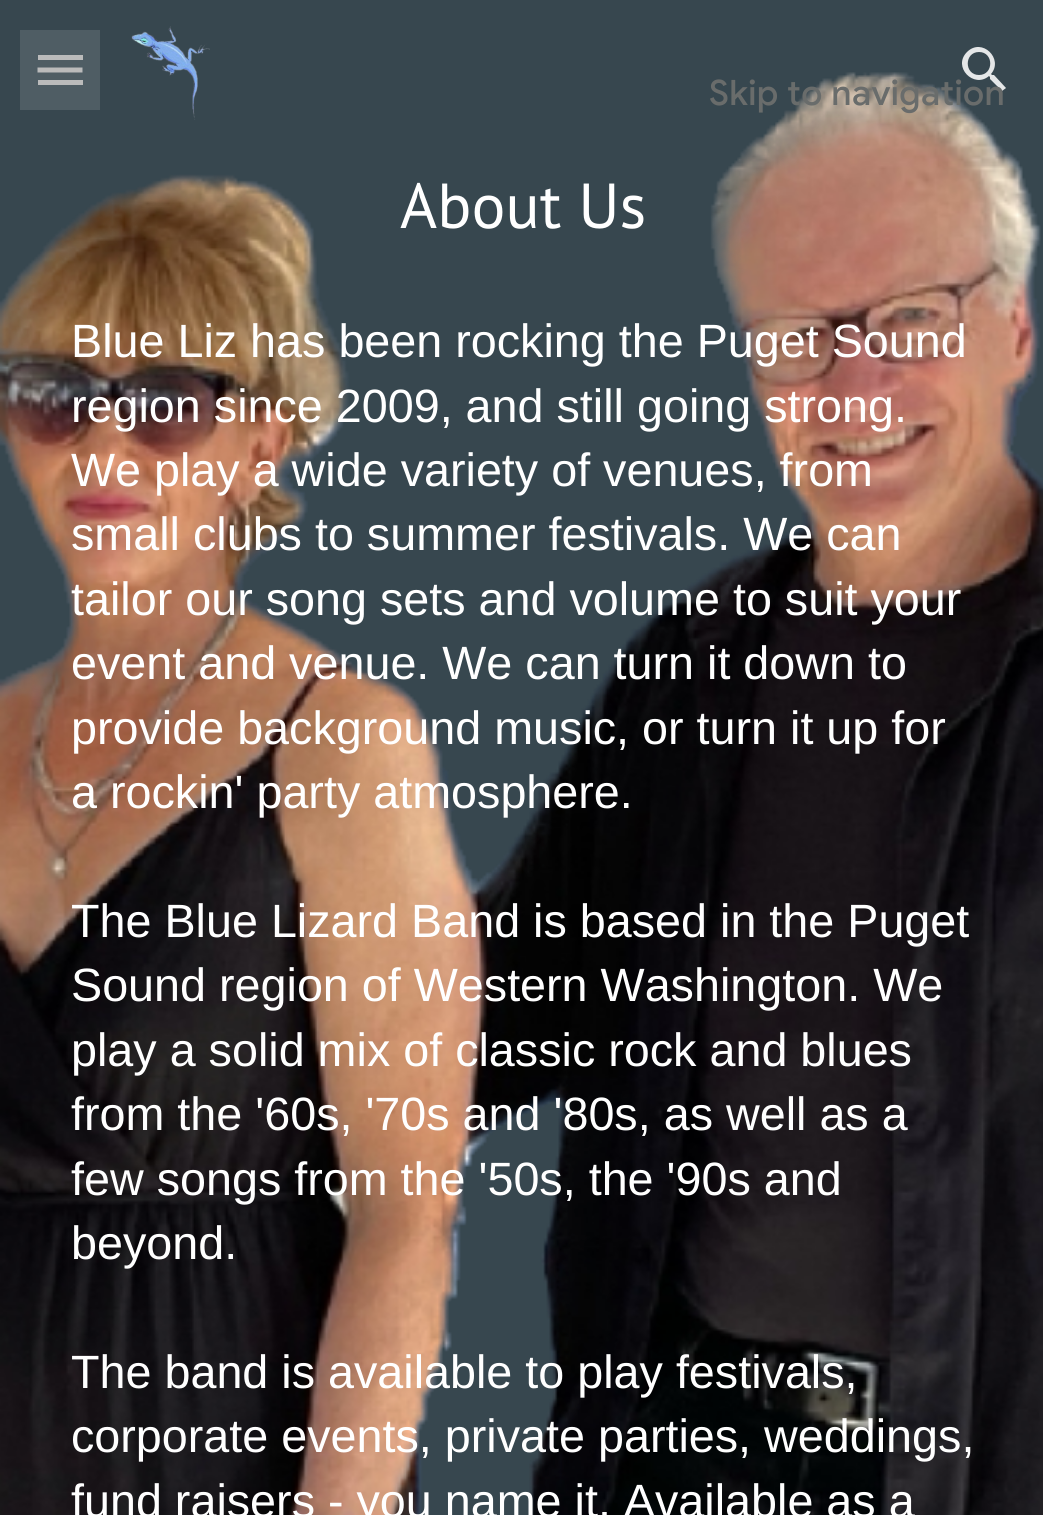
#include <cairo.h>
#include <math.h>
#include <stddef.h>

typedef struct { const char *family; double size; int italic, bold; unsigned color; } style_t;
static cairo_t *ctx;

static void ink(unsigned color) {
    cairo_set_source_rgb(ctx, (color >> 16) / 255.0, (color >> 8 & 255) / 255.0, (color & 255) / 255.0);
}

static void write(double x, double y, const char *s, const style_t *st) {
    cairo_select_font_face(ctx, st->family, st->italic ? CAIRO_FONT_SLANT_ITALIC : CAIRO_FONT_SLANT_NORMAL,
        st->bold ? CAIRO_FONT_WEIGHT_BOLD : CAIRO_FONT_WEIGHT_NORMAL);
    cairo_set_font_size(ctx, st->size);
    ink(st->color);
    cairo_move_to(ctx, x, y);
    cairo_show_text(ctx, s);
}

static void write_spaced(double x, double y, const char *s, double letter, double word) {
    cairo_move_to(ctx, x, y);
    while (*s) {
        char ch[5] = {0};
        int n = 0;
        do ch[n++] = *s++; while ((*s & 0xC0) == 0x80);
        cairo_show_text(ctx, ch);
        cairo_rel_move_to(ctx, letter + word * (*ch == ' '), 0);
    }
}

static void block(double x, double y, double w, double h, unsigned color) {
    ink(color);
    cairo_rectangle(ctx, x, y, w, h);
    cairo_fill(ctx);
}

static void paste(const char *path, double x, double y, double w, double h) {
    cairo_surface_t *image = cairo_image_surface_create_from_png(path);
    cairo_save(ctx);
    cairo_set_source_surface(ctx, image, x, y);
    cairo_rectangle(ctx, x, y, w, h);
    cairo_fill(ctx);
    cairo_restore(ctx);
    cairo_surface_destroy(image);
}

static const style_t s1 = {"PT Sans", 63.5, 0, 0, 0xffffff};
static const style_t s2 = {"Liberation Sans", 46.7, 0, 0, 0xffffff};

int main(void) {
    cairo_surface_t *surface = cairo_image_surface_create(CAIRO_FORMAT_RGB24, 1043, 1515);
    ctx = cairo_create(surface);
    cairo_font_options_t *options = cairo_font_options_create();
    cairo_font_options_set_hint_metrics(options, CAIRO_HINT_METRICS_OFF);
    cairo_font_options_set_hint_style(options, CAIRO_HINT_STYLE_NONE);
    cairo_set_font_options(ctx, options);
    cairo_set_miter_limit(ctx, 4);
    ink(0x37474f);
    cairo_paint(ctx);
    paste("pic2.png", 0, 72, 1043, 1443);
    ink(0xe5e7e8);
    cairo_new_path(ctx);
    cairo_move_to(ctx, 994, 75);
    cairo_line_to(ctx, 992, 75);
    cairo_line_to(ctx, 991, 74);
    cairo_curve_to(ctx, 1004, 59, 982, 37, 967, 52);
    cairo_curve_to(ctx, 952, 67, 974, 89, 989, 76);
    cairo_line_to(ctx, 990, 77);
    cairo_line_to(ctx, 990, 79);
    cairo_line_to(ctx, 1002, 91);
    cairo_line_to(ctx, 1006, 88);
    cairo_close_path(ctx);
    cairo_move_to(ctx, 979, 75);
    cairo_curve_to(ctx, 964, 75, 964, 52, 979, 52);
    cairo_curve_to(ctx, 994, 52, 994, 75, 979, 75);
    cairo_close_path(ctx);
    cairo_fill(ctx);
    cairo_select_font_face(ctx, "Google Sans Medium", CAIRO_FONT_SLANT_NORMAL, CAIRO_FONT_WEIGHT_NORMAL);
    cairo_set_font_size(ctx, 35);
    ink(0x696c6b);
    write_spaced(709, 105, "Skip to navigation", 0.4, 0);
    block(38, 55, 45, 5, 0xb2b2b2);
    cairo_new_path(ctx);
    cairo_move_to(ctx, 37.5, 70);
    cairo_line_to(ctx, 82.5, 70);
    cairo_set_line_width(ctx, 5);
    cairo_stroke(ctx);
    block(38, 80, 45, 5, 0xb2b2b2);
    cairo_set_source_rgba(ctx, 1, 1, 1, 0.12);
    cairo_rectangle(ctx, 20, 30, 80, 80);
    cairo_fill(ctx);
    paste("pic1.png", 131, 26, 79, 94);
    write(400, 228, "About Us", &s1);
    write(71, 357, "Blue Liz has been rocking the Puget Sound", &s2);
    write(71, 422, "region since 2009, and still going strong.", &s2);
    write(71, 486, "We play a wide variety of venues, from", &s2);
    write(71, 550, "small clubs to summer festivals. We can", &s2);
    write(71, 615, "tailor our song sets and volume to suit your", &s2);
    write(71, 679, "event and venue. We can turn it down to", &s2);
    write(71, 744, "provide background music, or turn it up for", &s2);
    write(71, 808, "a rockin' party atmosphere.", &s2);
    write(71, 937, "The Blue Lizard Band is based in the Puget", &s2);
    write(71, 1001, "Sound region of Western Washington. We", &s2);
    write(71, 1066, "play a solid mix of classic rock and blues", &s2);
    write(71, 1130, "from the '60s, '70s and '80s, as well as a", &s2);
    write(71, 1195, "few songs from the '50s, the '90s and", &s2);
    write(71, 1259, "beyond.", &s2);
    write(71, 1388, "The band is available to play festivals,", &s2);
    write(71, 1452, "corporate events, private parties, weddings,", &s2);
    write(71, 1517, "fund raisers - you name it. Available as a", &s2);
    cairo_surface_write_to_png(surface, "screenshot.png");
    cairo_font_options_destroy(options);
    cairo_destroy(ctx);
    cairo_surface_destroy(surface);
    return 0;
}
